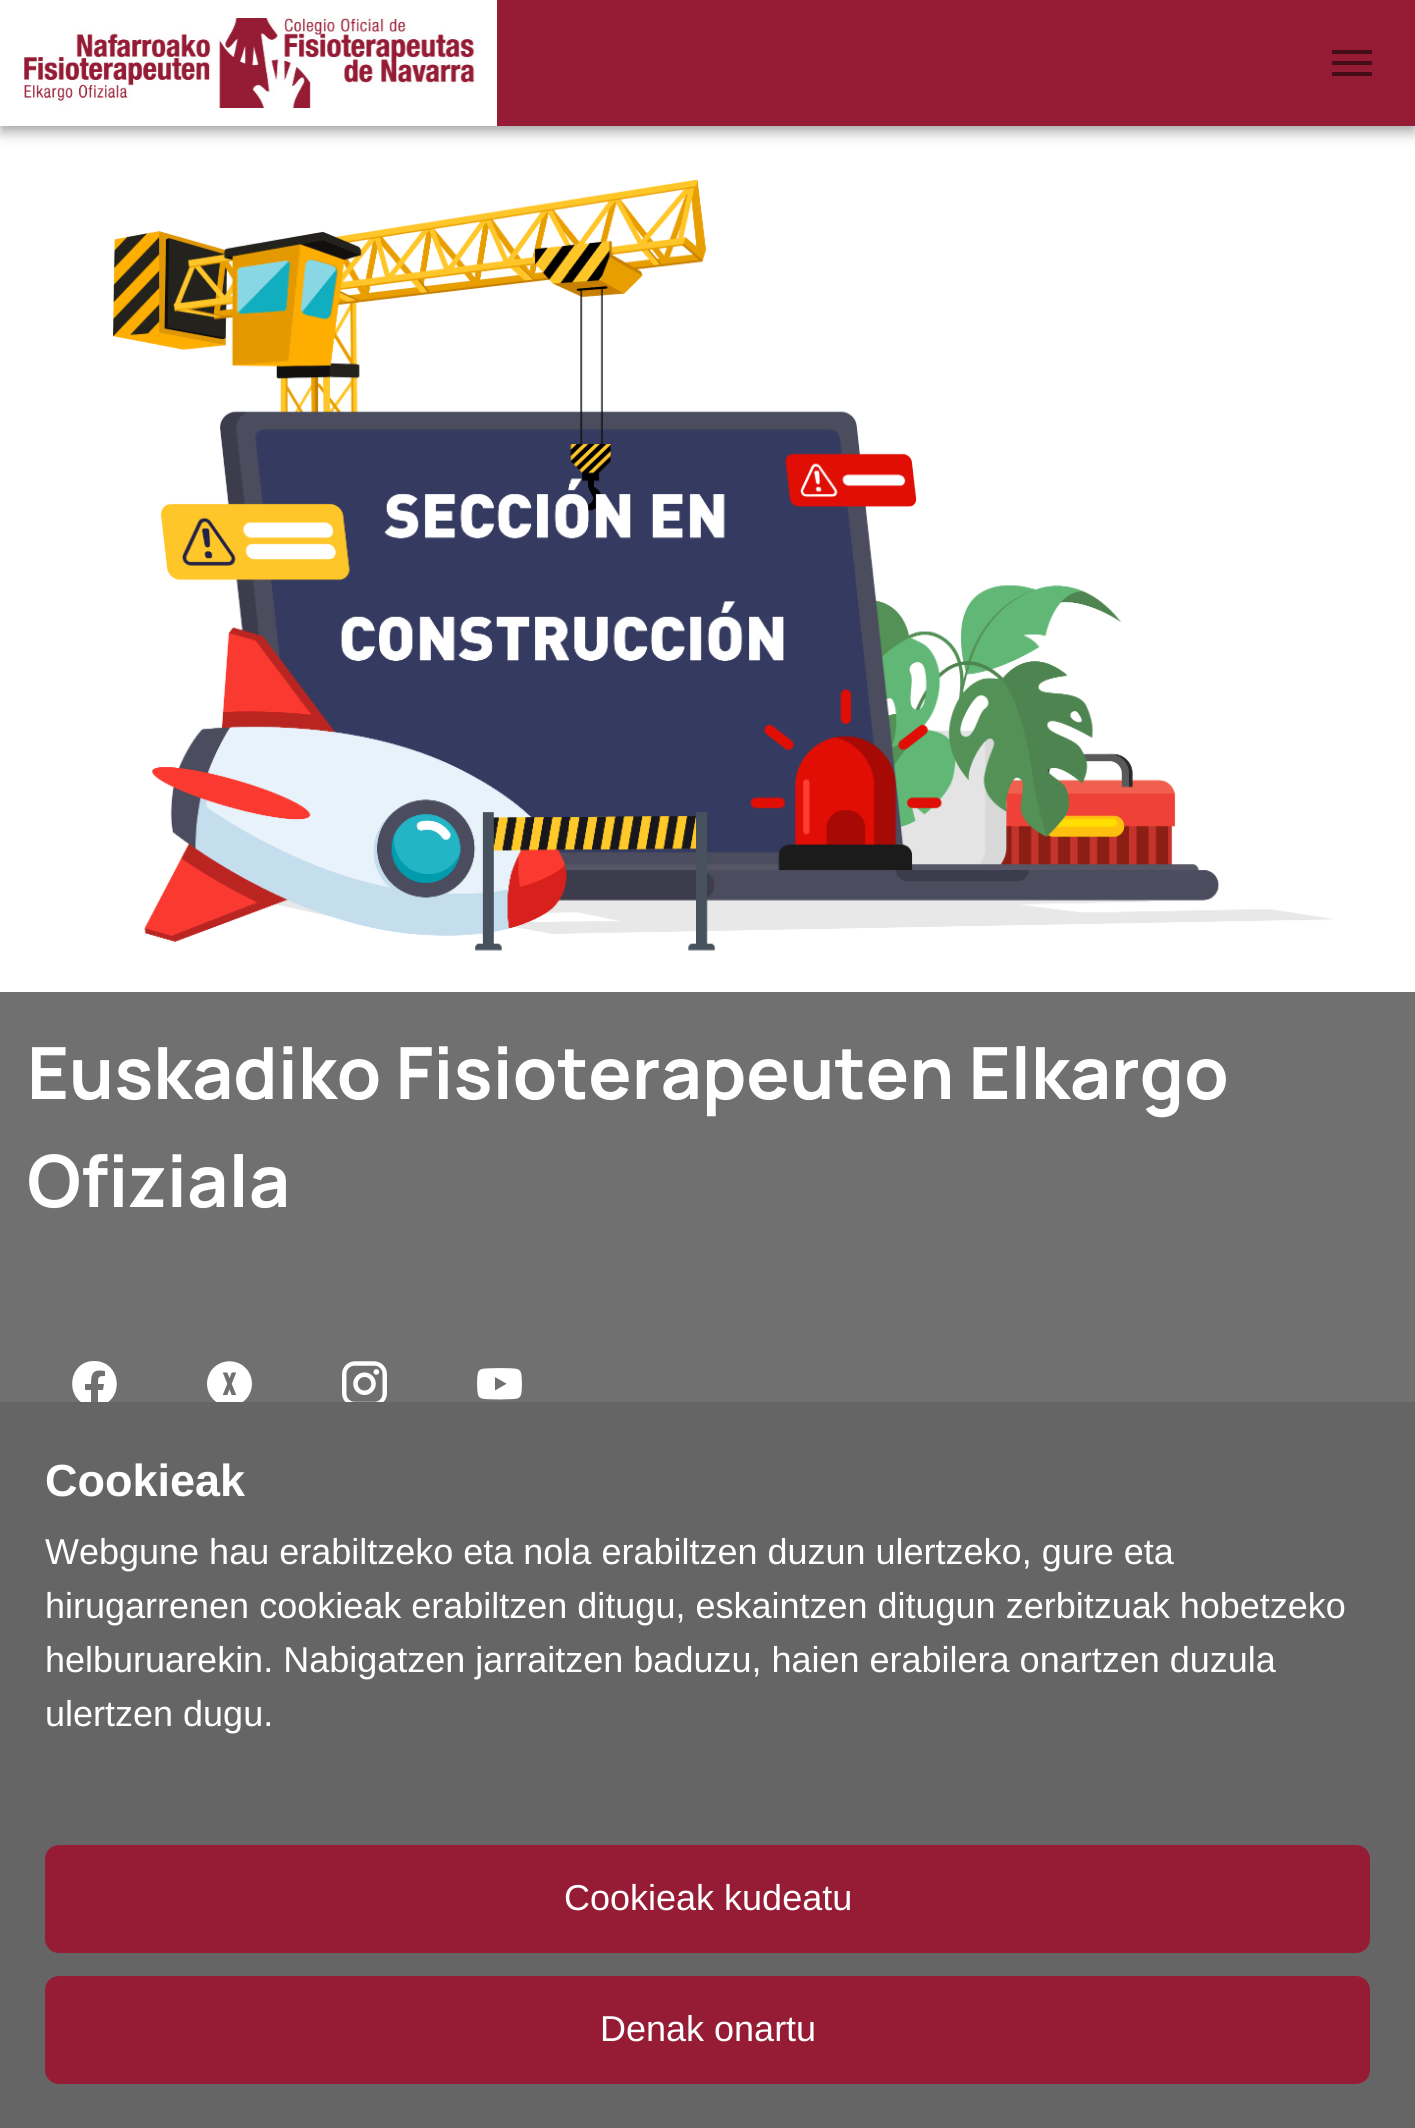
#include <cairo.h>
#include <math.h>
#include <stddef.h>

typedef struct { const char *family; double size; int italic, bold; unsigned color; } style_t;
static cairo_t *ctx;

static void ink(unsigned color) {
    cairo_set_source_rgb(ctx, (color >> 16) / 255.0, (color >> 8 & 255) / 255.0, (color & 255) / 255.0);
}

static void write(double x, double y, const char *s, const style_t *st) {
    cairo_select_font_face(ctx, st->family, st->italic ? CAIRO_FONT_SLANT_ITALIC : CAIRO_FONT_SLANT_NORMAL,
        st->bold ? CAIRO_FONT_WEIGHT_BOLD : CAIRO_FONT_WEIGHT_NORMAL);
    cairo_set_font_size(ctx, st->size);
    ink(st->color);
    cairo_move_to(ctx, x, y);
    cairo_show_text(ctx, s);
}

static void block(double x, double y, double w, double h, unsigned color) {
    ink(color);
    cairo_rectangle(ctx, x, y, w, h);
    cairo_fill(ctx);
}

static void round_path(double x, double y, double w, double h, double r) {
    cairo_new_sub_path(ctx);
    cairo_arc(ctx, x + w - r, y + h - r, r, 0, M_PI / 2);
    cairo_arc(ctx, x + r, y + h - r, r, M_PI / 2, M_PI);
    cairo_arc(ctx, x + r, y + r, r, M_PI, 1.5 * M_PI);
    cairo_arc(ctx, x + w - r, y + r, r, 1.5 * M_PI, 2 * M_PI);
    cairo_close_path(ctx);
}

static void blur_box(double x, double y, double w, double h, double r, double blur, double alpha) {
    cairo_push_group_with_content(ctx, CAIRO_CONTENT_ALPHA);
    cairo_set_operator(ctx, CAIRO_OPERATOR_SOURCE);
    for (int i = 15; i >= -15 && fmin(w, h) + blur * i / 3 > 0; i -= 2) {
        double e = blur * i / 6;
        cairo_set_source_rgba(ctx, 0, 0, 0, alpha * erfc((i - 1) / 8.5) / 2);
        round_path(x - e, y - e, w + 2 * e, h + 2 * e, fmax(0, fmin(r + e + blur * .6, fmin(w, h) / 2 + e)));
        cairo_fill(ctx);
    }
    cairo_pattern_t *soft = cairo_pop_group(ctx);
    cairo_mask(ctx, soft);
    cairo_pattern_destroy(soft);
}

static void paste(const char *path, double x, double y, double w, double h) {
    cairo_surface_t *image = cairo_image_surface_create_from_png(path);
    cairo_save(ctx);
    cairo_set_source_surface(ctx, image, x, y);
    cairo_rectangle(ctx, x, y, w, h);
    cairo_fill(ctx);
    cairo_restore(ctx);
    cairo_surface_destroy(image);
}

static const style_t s1 = {"Manrope", 72, 0, 1, 0xffffff};
static const style_t s2 = {"Liberation Sans", 45, 0, 1, 0xffffff};
static const style_t s3 = {"Liberation Sans", 36, 0, 0, 0xffffff};

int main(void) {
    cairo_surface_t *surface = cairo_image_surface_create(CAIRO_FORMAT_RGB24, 1415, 2128);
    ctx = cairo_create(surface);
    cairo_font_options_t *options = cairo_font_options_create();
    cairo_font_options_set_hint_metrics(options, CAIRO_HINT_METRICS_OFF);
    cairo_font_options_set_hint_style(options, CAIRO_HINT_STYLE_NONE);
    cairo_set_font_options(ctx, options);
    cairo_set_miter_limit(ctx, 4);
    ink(0xffffff);
    cairo_paint(ctx);
    ink(0x000000);
    blur_box(0, 2, 1415, 126, 0, 11, 0.12);
    blur_box(0, 9, 1415, 126, 0, 5.5, 0.14);
    blur_box(2, 7, 1411, 121, 0, 4.5, 0.2);
    block(497, 0, 918, 126, 0x961c35);
    block(0, 0, 497, 126, 0xffffff);
    paste("pic1.png", 24, 18, 451, 90);
    ink(0x450d18);
    cairo_new_path(ctx);
    cairo_move_to(ctx, 1332, 50);
    cairo_line_to(ctx, 1372, 50);
    cairo_line_to(ctx, 1372, 54);
    cairo_line_to(ctx, 1332, 54);
    cairo_close_path(ctx);
    cairo_move_to(ctx, 1332, 61);
    cairo_line_to(ctx, 1372, 61);
    cairo_line_to(ctx, 1372, 65);
    cairo_line_to(ctx, 1332, 65);
    cairo_close_path(ctx);
    cairo_move_to(ctx, 1332, 72);
    cairo_line_to(ctx, 1372, 72);
    cairo_line_to(ctx, 1372, 76);
    cairo_line_to(ctx, 1332, 76);
    cairo_close_path(ctx);
    cairo_fill(ctx);
    paste("pic2.png", 113, 179, 1220, 772);
    block(0, 992, 1415, 410, 0x707070);
    write(27, 1099, "Euskadiko Fisioterapeuten Elkargo", &s1);
    write(27, 1207, "Ofiziala", &s1);
    cairo_new_path(ctx);
    cairo_move_to(ctx, 94, 1361);
    cairo_curve_to(ctx, 67, 1361, 64, 1402, 91, 1406);
    cairo_line_to(ctx, 91, 1390);
    cairo_line_to(ctx, 85, 1390);
    cairo_line_to(ctx, 85, 1384);
    cairo_line_to(ctx, 91, 1384);
    cairo_curve_to(ctx, 91, 1373, 93, 1369, 105, 1371);
    cairo_line_to(ctx, 105, 1376);
    cairo_curve_to(ctx, 98, 1376, 98, 1377, 98, 1384);
    cairo_line_to(ctx, 104, 1384);
    cairo_line_to(ctx, 103, 1390);
    cairo_line_to(ctx, 98, 1390);
    cairo_line_to(ctx, 98, 1406);
    cairo_curve_to(ctx, 125, 1402, 122, 1361, 94, 1361);
    cairo_close_path(ctx);
    cairo_fill(ctx);
    paste("pic3.png", 207, 1361, 45, 41);
    paste("pic4.png", 342, 1361, 45, 41);
    paste("pic5.png", 477, 1368, 45, 32);
    block(0, 1402, 1415, 726, 0x656565);
    write(45, 1496, "Cookieak", &s2);
    write(45, 1564, "Webgune hau erabiltzeko eta nola erabiltzen duzun ulertzeko, gure eta", &s3);
    write(45, 1618, "hirugarrenen cookieak erabiltzen ditugu, eskaintzen ditugun zerbitzuak hobetzeko", &s3);
    write(45, 1672, "helburuarekin. Nabigatzen jarraitzen baduzu, haien erabilera onartzen duzula", &s3);
    write(45, 1726, "ulertzen dugu.", &s3);
    ink(0x961c35);
    round_path(45, 1845, 1325, 108, 14);
    cairo_fill(ctx);
    write(564, 1910, "Cookieak kudeatu", &s3);
    ink(0x961c35);
    round_path(45, 1976, 1325, 108, 14);
    cairo_fill(ctx);
    write(600, 2041, "Denak onartu", &s3);
    cairo_surface_write_to_png(surface, "screenshot.png");
    cairo_font_options_destroy(options);
    cairo_destroy(ctx);
    cairo_surface_destroy(surface);
    return 0;
}
